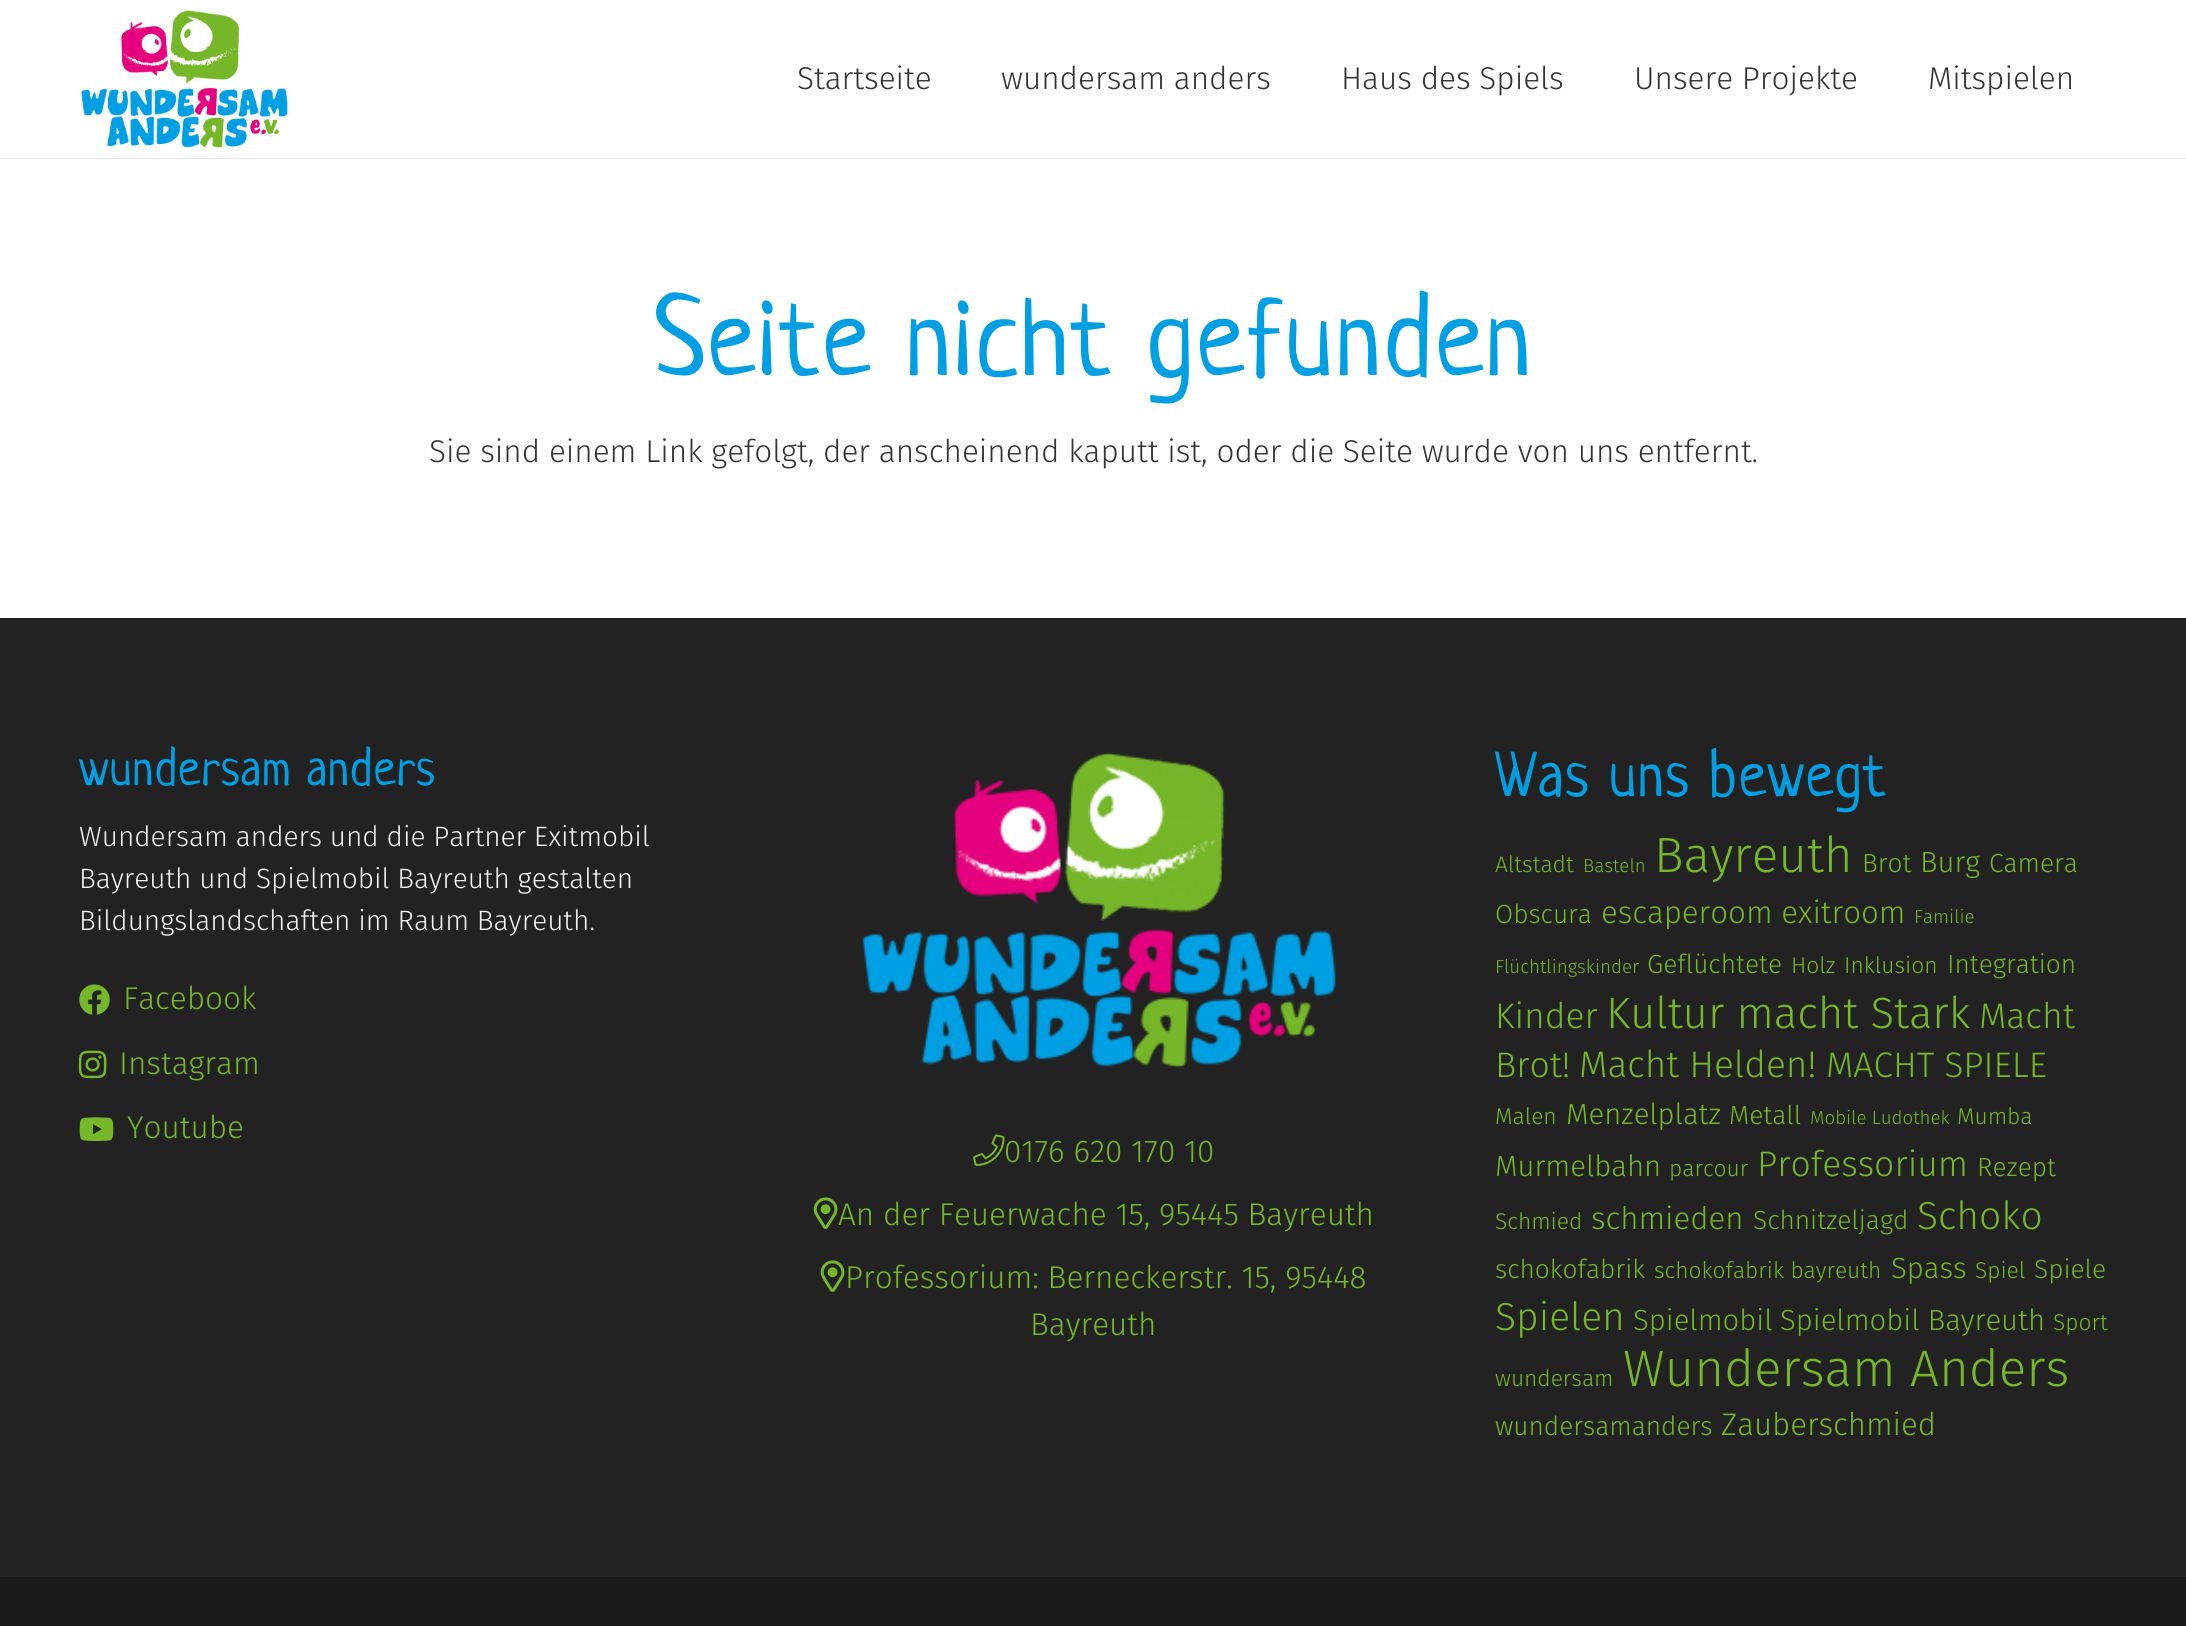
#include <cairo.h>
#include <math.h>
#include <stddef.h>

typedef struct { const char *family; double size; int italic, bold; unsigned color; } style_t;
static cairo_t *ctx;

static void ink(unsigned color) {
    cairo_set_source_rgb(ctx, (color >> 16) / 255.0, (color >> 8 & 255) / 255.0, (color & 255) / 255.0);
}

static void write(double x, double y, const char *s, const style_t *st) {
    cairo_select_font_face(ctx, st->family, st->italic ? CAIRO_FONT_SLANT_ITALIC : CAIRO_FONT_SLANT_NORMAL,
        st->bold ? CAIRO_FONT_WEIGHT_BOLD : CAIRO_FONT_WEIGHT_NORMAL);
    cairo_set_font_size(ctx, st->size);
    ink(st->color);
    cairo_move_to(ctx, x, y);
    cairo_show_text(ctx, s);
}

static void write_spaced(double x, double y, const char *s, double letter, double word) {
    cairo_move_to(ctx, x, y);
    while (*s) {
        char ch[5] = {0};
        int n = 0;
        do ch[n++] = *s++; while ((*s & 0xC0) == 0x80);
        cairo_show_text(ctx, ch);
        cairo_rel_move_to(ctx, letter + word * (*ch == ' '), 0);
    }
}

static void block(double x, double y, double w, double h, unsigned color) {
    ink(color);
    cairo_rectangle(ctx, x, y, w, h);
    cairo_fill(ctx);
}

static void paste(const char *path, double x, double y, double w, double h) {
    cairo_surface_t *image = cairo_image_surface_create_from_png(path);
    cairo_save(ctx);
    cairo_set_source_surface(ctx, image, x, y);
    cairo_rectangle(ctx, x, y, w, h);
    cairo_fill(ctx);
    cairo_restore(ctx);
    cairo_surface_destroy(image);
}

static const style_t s1 = {"Fira Sans Light", 31.5, 0, 0, 0x333333};
static const style_t s2 = {"Fira Sans Light", 28, 0, 0, 0xf5f5f5};
static const style_t s3 = {"Fira Sans Light", 31.5, 0, 0, 0x76b729};
static const style_t s4 = {"Fira Sans Light", 22.75, 0, 0, 0x76b729};
static const style_t s5 = {"Fira Sans Light", 18.75, 0, 0, 0x76b729};
static const style_t s6 = {"Fira Sans Light", 49.5, 0, 0, 0x76b729};
static const style_t s7 = {"Fira Sans Light", 26.25, 0, 0, 0x76b729};
static const style_t s8 = {"Fira Sans Light", 29.25, 0, 0, 0x76b729};
static const style_t s9 = {"Fira Sans Light", 31.25, 0, 0, 0x76b729};
static const style_t s10 = {"Fira Sans Light", 35.5, 0, 0, 0x76b729};
static const style_t s11 = {"Fira Sans Light", 43.75, 0, 0, 0x76b729};
static const style_t s12 = {"Fira Sans Light", 37, 0, 0, 0x76b729};
static const style_t s13 = {"Fira Sans Light", 39, 0, 0, 0x76b729};
static const style_t s14 = {"Fira Sans Light", 51.25, 0, 0, 0x76b729};

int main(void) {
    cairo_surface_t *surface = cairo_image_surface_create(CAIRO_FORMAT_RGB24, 2186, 1626);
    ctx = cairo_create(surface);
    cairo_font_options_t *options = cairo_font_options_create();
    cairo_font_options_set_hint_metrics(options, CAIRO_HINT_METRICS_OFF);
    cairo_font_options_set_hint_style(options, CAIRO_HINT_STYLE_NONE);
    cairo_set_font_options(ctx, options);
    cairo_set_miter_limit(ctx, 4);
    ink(0xffffff);
    cairo_paint(ctx);
    ink(0xebebeb);
    cairo_new_path(ctx);
    cairo_move_to(ctx, 0, 158);
    cairo_line_to(ctx, 0, 159);
    cairo_line_to(ctx, 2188, 159);
    cairo_line_to(ctx, 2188, 2);
    cairo_line_to(ctx, 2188, 158);
    cairo_close_path(ctx);
    cairo_fill(ctx);
    paste("pic1.png", 81, 10, 207, 138);
    write(797, 89, "Startseite", &s1);
    write(1001, 89, "wundersam anders", &s1);
    write(1341, 89, "Haus des Spiels", &s1);
    write(1634, 89, "Unsere Projekte", &s1);
    write(1928, 89, "Mitspielen", &s1);
    cairo_select_font_face(ctx, "Neucha", CAIRO_FONT_SLANT_NORMAL, CAIRO_FONT_WEIGHT_NORMAL);
    cairo_set_font_size(ctx, 110.25);
    ink(0x009fe3);
    write_spaced(655, 375, "Seite nicht gefunden", 2.25, 0);
    write(429, 462, "Sie sind einem Link gefolgt, der anscheinend kaputt ist, oder die Seite wurde von uns entfernt.", &s1);
    block(0, 618, 2186, 959, 0x222222);
    cairo_select_font_face(ctx, "Neucha", CAIRO_FONT_SLANT_NORMAL, CAIRO_FONT_WEIGHT_NORMAL);
    cairo_set_font_size(ctx, 50.5);
    ink(0x009fe3);
    write_spaced(79, 785, "wundersam anders", 1, 0);
    write(79, 846, "Wundersam anders und die Partner Exitmobil", &s2);
    write(79, 888, "Bayreuth und Spielmobil Bayreuth gestalten", &s2);
    write(79, 930, "Bildungslandschaften im Raum Bayreuth.", &s2);
    paste("pic2.png", 79, 984, 31, 31);
    write(123, 1009, "Facebook", &s3);
    paste("pic3.png", 78, 1050, 29, 29);
    write(119, 1074, "Instagram", &s3);
    paste("pic4.png", 79, 1117, 35, 24);
    write(127, 1138, "Youtube", &s3);
    paste("pic5.png", 862, 752, 474, 316);
    paste("pic6.png", 973, 1134, 32, 32);
    write(1004, 1162, "0176 620 170 10", &s3);
    paste("pic7.png", 813, 1197, 25, 32);
    write(838, 1225, "An der Feuerwache 15, 95445 Bayreuth", &s3);
    paste("pic7.png", 820, 1260, 25, 32);
    write(845, 1288, "Professorium: Berneckerstr. 15, 95448", &s3);
    write(1030, 1335, "Bayreuth", &s3);
    cairo_select_font_face(ctx, "Neucha", CAIRO_FONT_SLANT_NORMAL, CAIRO_FONT_WEIGHT_NORMAL);
    cairo_set_font_size(ctx, 63);
    ink(0x009fe3);
    write_spaced(1495, 796, "Was uns bewegt", 1.25, 0);
    write(1495, 872, "Altstadt", &s4);
    write(1583, 872, "Basteln", &s5);
    write(1654, 872, "Bayreuth", &s6);
    write(1862, 872, "Brot", &s7);
    write(1920, 872, "Burg", &s8);
    write(1989, 872, "Camera", &s7);
    write(1495, 923, "Obscura", &s7);
    write(1601, 923, "escaperoom exitroom", &s9);
    write(1914, 923, "Familie", &s5);
    write(1495, 973, "Flüchtlingskinder", &s5);
    write(1647, 973, "Geflüchtete", &s7);
    write(1791, 973, "Holz", &s4);
    write(1844, 973, "Inklusion", &s4);
    write(1947, 973, "Integration", &s7);
    write(1495, 1028, "Kinder", &s10);
    write(1606, 1028, "Kultur macht Stark", &s11);
    write(1979, 1028, "Macht", &s10);
    write(1495, 1077, "Brot!", &s10);
    write(1579, 1077, "Macht Helden!", &s12);
    write(1826, 1077, "MACHT SPIELE", &s10);
    write(1495, 1124, "Malen", &s4);
    write(1566, 1124, "Menzelplatz", &s8);
    write(1729, 1124, "Metall", &s7);
    write(1810, 1124, "Mobile Ludothek", &s5);
    write(1957, 1124, "Mumba", &s4);
    write(1495, 1176, "Murmelbahn", &s8);
    write(1669, 1176, "parcour", &s4);
    write(1757, 1176, "Professorium", &s10);
    write(1977, 1176, "Rezept", &s7);
    write(1495, 1229, "Schmied", &s4);
    write(1591, 1229, "schmieden", &s9);
    write(1753, 1229, "Schnitzeljagd", &s7);
    write(1917, 1229, "Schoko", &s13);
    write(1495, 1278, "schokofabrik", &s7);
    write(1654, 1278, "schokofabrik bayreuth", &s4);
    write(1891, 1278, "Spass", &s8);
    write(1975, 1278, "Spiel", &s4);
    write(2034, 1278, "Spiele", &s7);
    write(1495, 1330, "Spielen", &s13);
    write(1633, 1330, "Spielmobil", &s8);
    write(1780, 1330, "Spielmobil Bayreuth", &s8);
    write(2053, 1330, "Sport", &s4);
    write(1495, 1386, "wundersam", &s4);
    write(1623, 1386, "Wundersam Anders", &s14);
    write(1495, 1435, "wundersamanders", &s7);
    write(1721, 1435, "Zauberschmied", &s9);
    block(0, 1577, 2186, 49, 0x1a1a1a);
    cairo_surface_write_to_png(surface, "screenshot.png");
    cairo_font_options_destroy(options);
    cairo_destroy(ctx);
    cairo_surface_destroy(surface);
    return 0;
}
